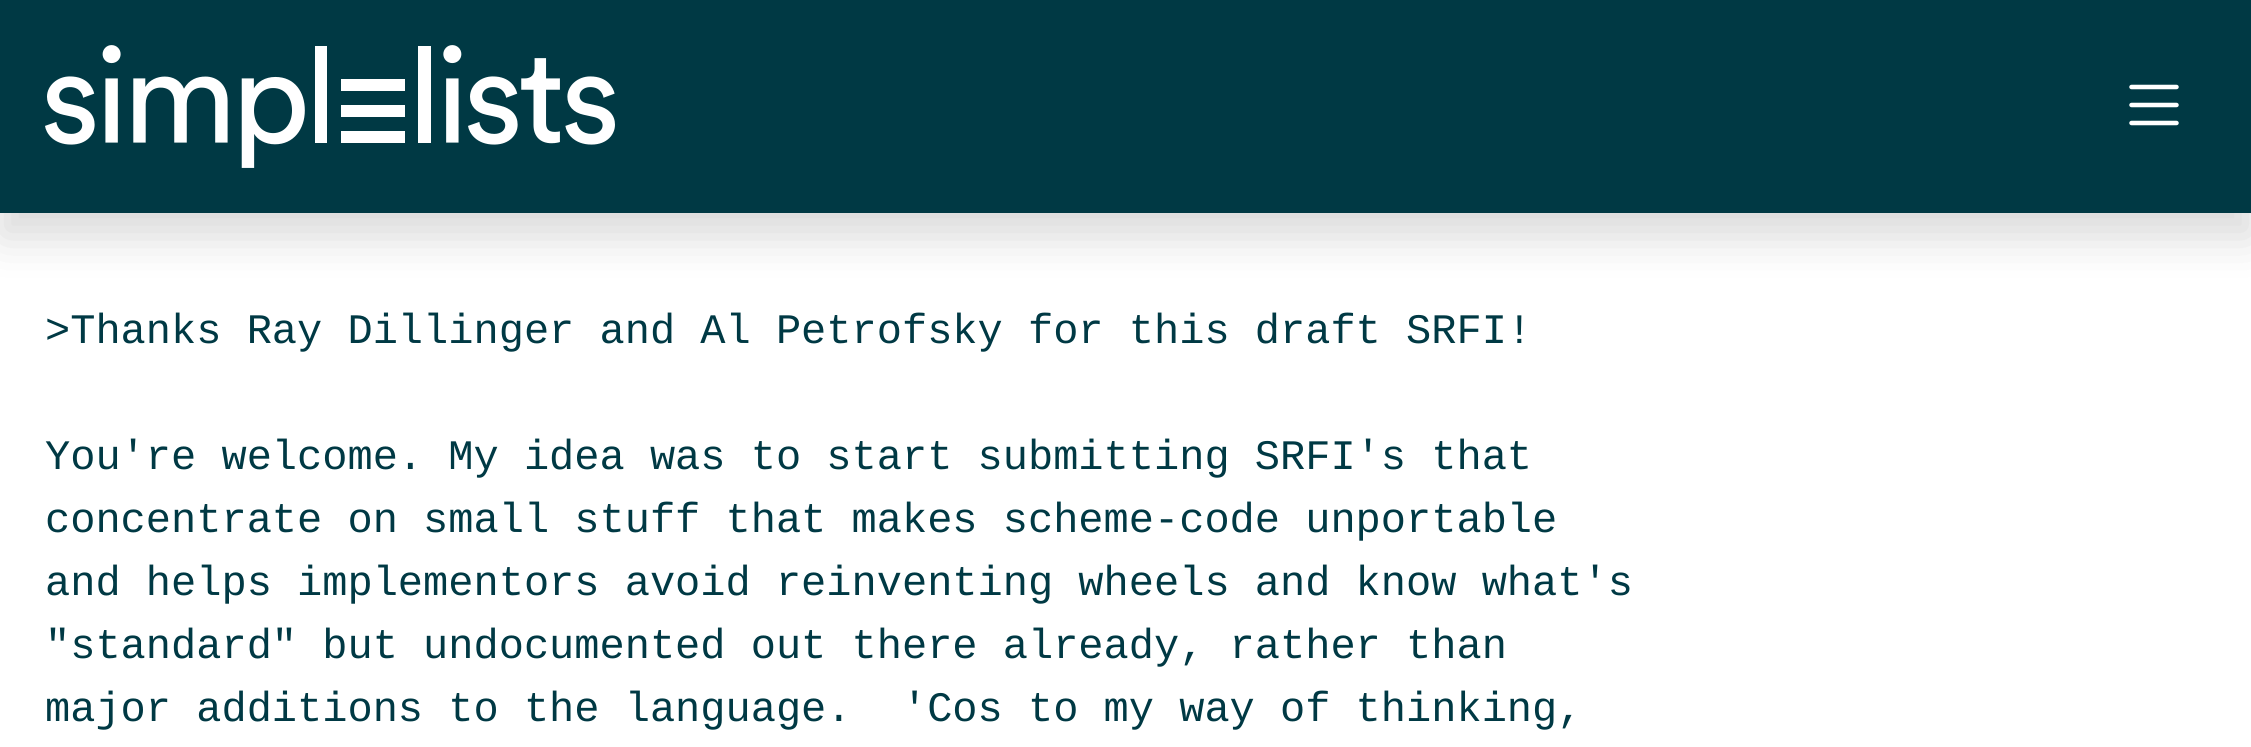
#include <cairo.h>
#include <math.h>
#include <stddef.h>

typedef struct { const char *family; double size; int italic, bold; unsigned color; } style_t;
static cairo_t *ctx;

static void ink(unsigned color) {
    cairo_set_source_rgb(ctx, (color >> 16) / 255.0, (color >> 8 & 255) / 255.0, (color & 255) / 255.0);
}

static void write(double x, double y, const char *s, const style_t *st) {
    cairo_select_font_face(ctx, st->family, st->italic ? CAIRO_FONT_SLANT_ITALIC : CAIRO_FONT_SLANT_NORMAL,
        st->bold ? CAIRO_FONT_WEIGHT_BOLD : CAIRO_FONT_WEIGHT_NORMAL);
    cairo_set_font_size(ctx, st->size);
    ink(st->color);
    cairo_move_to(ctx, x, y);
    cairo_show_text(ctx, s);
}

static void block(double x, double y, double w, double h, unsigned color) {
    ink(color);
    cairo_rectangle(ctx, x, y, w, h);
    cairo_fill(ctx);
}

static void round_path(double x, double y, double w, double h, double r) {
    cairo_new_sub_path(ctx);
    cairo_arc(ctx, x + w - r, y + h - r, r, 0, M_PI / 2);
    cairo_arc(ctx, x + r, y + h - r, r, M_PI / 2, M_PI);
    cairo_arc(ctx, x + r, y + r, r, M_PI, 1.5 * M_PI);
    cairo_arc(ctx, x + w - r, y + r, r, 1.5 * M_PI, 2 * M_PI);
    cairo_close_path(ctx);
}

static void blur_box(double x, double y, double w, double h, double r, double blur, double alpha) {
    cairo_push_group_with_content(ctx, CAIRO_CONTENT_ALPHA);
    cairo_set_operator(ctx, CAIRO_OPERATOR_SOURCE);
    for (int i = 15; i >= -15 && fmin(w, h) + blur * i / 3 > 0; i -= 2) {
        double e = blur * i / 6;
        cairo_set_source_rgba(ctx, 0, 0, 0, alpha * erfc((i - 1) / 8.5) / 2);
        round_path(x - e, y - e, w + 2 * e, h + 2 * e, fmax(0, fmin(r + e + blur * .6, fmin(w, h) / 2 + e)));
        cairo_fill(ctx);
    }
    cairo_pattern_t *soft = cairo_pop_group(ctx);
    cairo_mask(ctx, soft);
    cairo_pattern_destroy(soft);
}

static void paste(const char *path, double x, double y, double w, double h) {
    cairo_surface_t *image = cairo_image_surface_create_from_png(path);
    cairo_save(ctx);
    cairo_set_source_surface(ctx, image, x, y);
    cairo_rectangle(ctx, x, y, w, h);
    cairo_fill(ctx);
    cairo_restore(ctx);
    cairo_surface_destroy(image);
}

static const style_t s1 = {"Liberation Mono", 42, 0, 0, 0x003944};

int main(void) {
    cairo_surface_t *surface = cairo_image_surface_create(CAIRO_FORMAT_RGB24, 2251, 747);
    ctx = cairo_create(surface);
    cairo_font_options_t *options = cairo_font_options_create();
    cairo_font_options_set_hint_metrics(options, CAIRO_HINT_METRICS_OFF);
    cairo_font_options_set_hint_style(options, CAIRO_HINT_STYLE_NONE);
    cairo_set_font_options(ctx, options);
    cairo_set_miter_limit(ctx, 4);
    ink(0xffffff);
    cairo_paint(ctx);
    ink(0x000000);
    blur_box(0, 24, 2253, 213, 0, 22.5, 0.15);
    block(0, 0, 2251, 213, 0x003944);
    paste("pic1.png", 45, 45, 570, 123);
    paste("pic2.png", 2129, 84, 50, 42);
    write(45, 343, ">Thanks Ray Dillinger and Al Petrofsky for this draft SRFI!", &s1);
    write(45, 469, "You're welcome. My idea was to start submitting SRFI's that", &s1);
    write(45, 532, "concentrate on small stuff that makes scheme-code unportable", &s1);
    write(45, 595, "and helps implementors avoid reinventing wheels and know what's", &s1);
    write(45, 658, "\"standard\" but undocumented out there already, rather than", &s1);
    write(45, 721, "major additions to the language.  'Cos to my way of thinking,", &s1);
    cairo_surface_write_to_png(surface, "screenshot.png");
    cairo_font_options_destroy(options);
    cairo_destroy(ctx);
    cairo_surface_destroy(surface);
    return 0;
}
